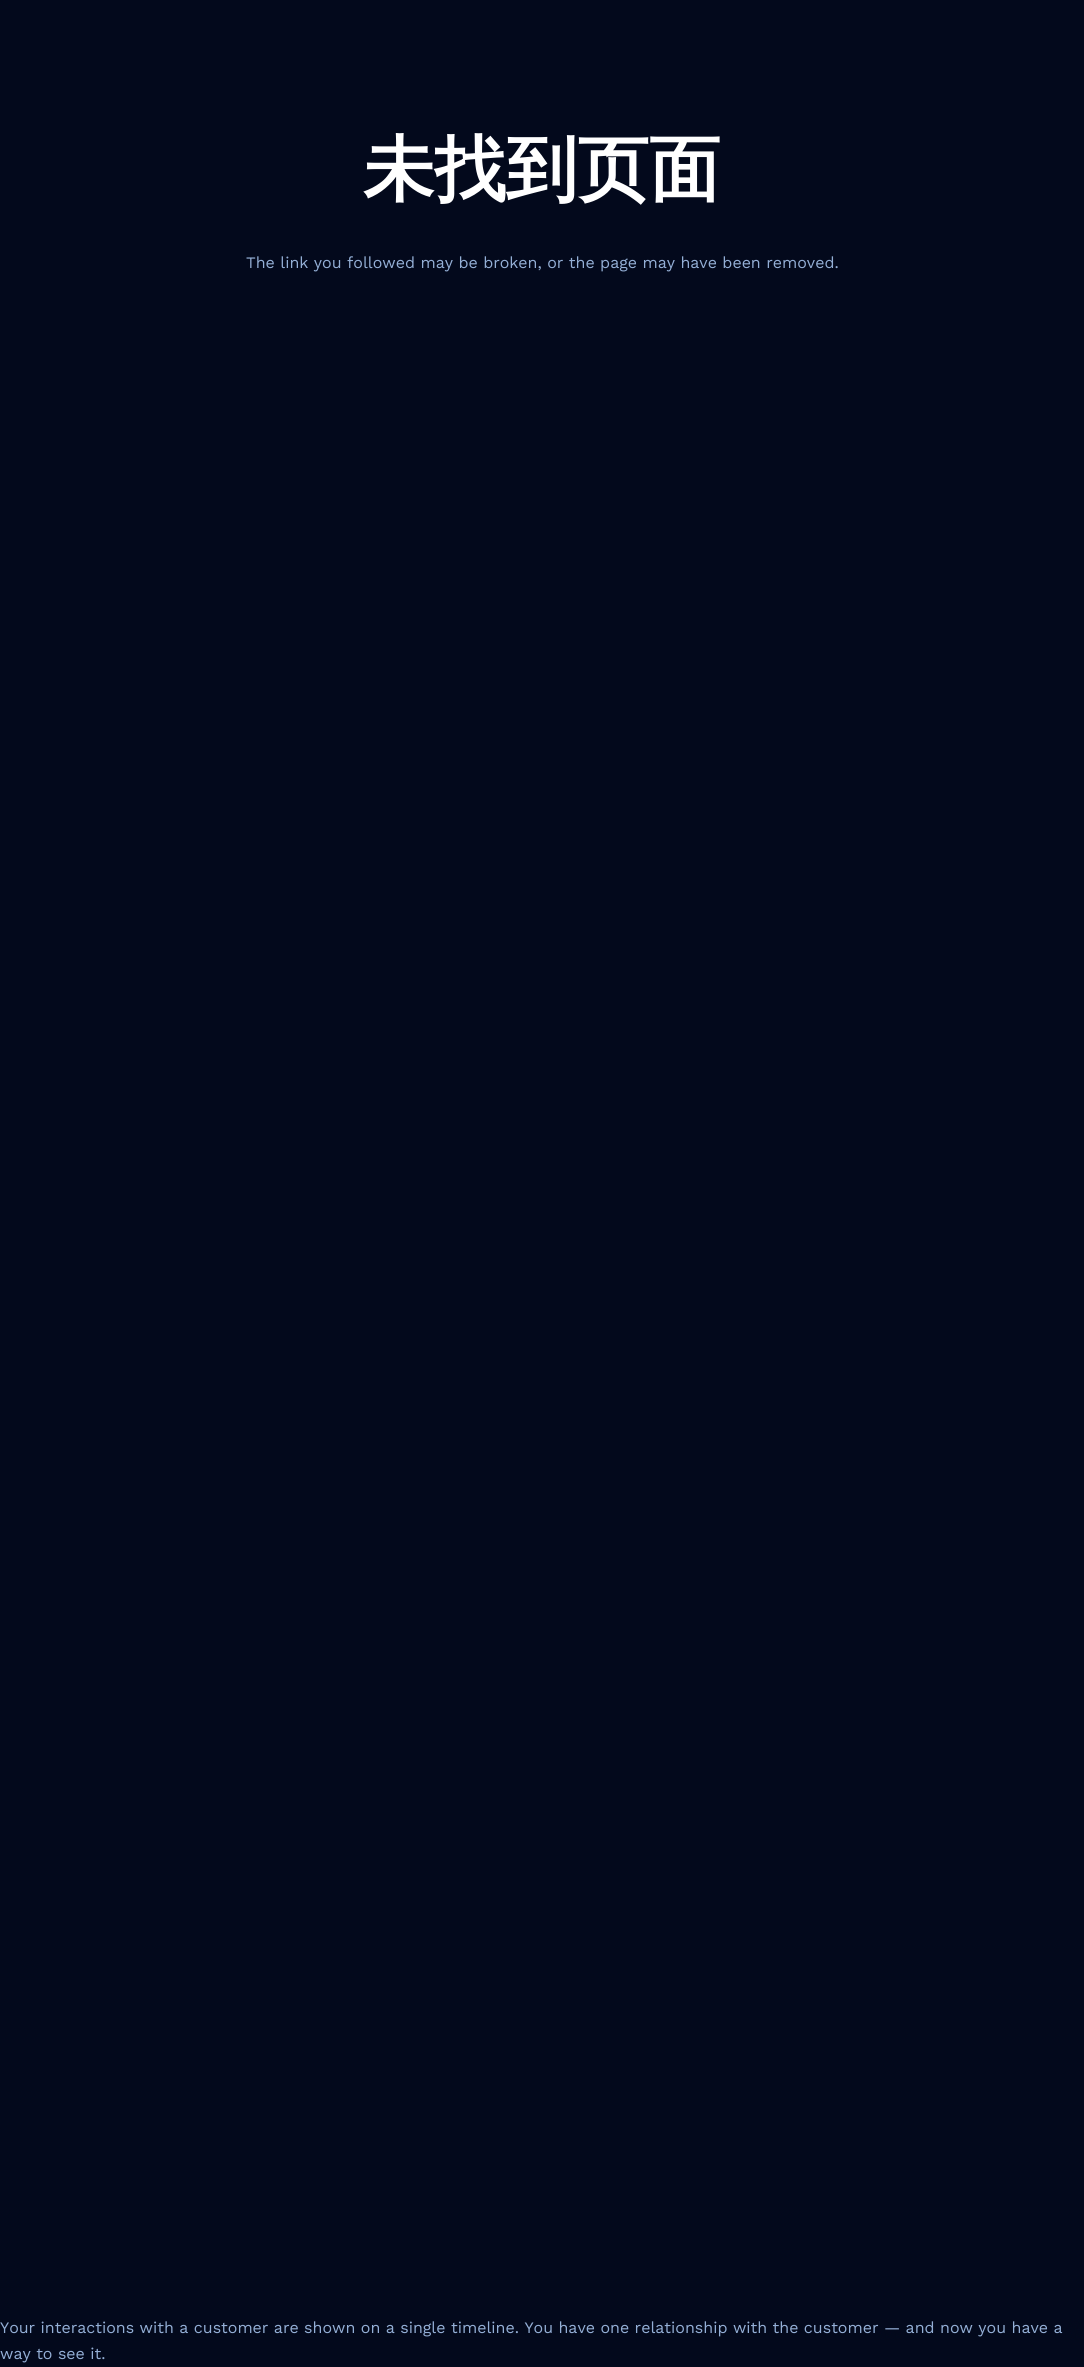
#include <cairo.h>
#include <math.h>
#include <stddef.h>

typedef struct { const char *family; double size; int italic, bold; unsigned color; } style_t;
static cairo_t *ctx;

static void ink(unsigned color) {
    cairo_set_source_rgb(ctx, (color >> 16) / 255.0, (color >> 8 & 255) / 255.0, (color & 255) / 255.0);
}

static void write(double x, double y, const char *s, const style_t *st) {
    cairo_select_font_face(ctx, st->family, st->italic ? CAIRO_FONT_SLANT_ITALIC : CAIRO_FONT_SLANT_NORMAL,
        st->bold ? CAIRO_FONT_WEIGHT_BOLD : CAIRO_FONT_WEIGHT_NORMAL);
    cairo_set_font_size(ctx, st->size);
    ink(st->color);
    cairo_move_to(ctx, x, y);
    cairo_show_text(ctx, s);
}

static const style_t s1 = {"WenQuanYi Zen Hei", 71.5, 0, 1, 0xffffff};
static const style_t s2 = {"Work Sans", 16, 0, 0, 0x94afd6};

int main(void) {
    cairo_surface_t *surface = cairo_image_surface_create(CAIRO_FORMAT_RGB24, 1084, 2367);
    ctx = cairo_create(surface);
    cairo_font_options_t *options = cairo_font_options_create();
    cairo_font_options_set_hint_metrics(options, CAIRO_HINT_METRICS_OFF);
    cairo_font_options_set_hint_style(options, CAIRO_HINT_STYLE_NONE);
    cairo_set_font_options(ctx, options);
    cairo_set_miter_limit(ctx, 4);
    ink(0x03091c);
    cairo_paint(ctx);
    write(363, 194, "未找到页面", &s1);
    write(246, 268, "The link you followed may be broken, or the page may have been removed.", &s2);
    write(0, 2333, "Your interactions with a customer are shown on a single timeline. You have one relationship with the customer — and now you have a", &s2);
    write(0, 2359, "way to see it.", &s2);
    cairo_surface_write_to_png(surface, "screenshot.png");
    cairo_font_options_destroy(options);
    cairo_destroy(ctx);
    cairo_surface_destroy(surface);
    return 0;
}
